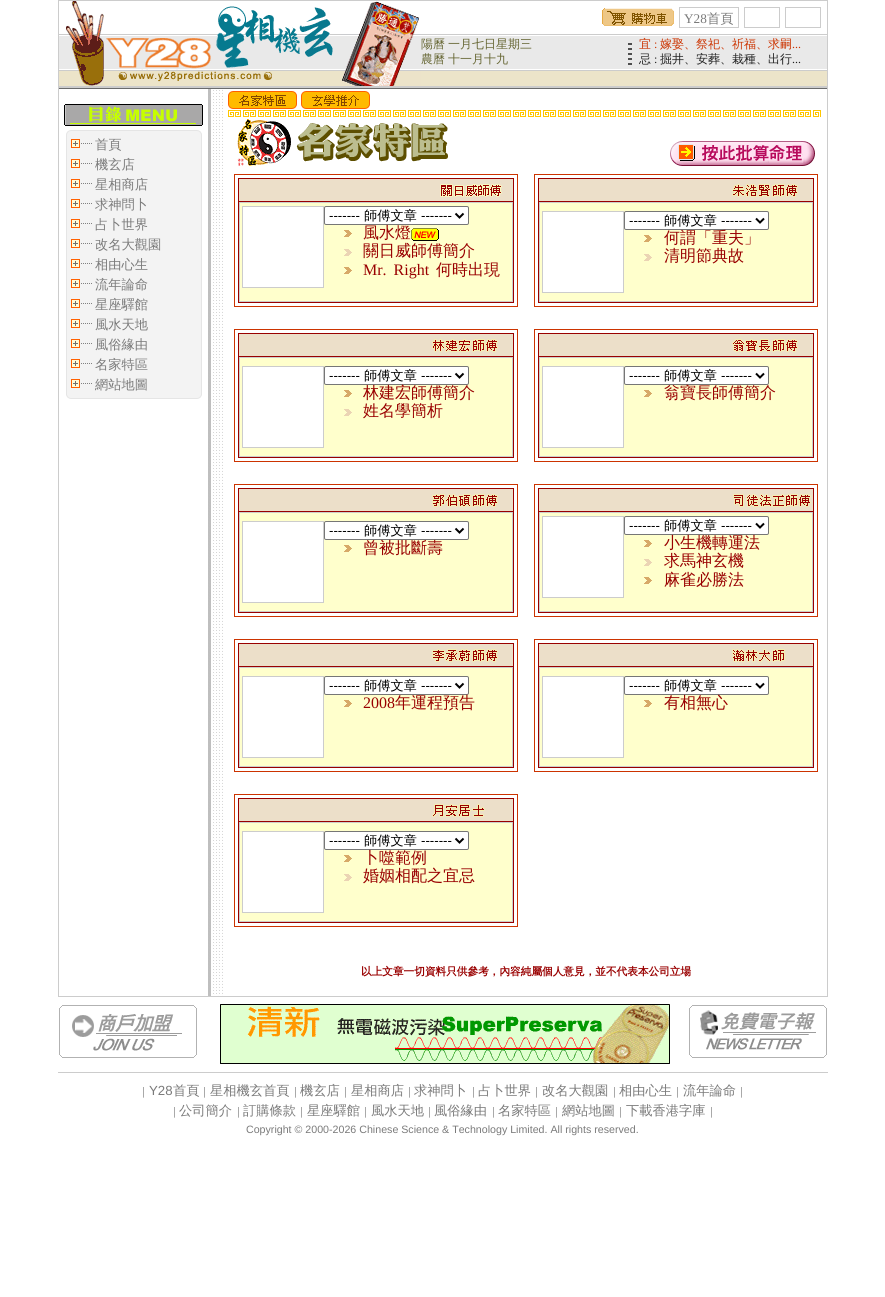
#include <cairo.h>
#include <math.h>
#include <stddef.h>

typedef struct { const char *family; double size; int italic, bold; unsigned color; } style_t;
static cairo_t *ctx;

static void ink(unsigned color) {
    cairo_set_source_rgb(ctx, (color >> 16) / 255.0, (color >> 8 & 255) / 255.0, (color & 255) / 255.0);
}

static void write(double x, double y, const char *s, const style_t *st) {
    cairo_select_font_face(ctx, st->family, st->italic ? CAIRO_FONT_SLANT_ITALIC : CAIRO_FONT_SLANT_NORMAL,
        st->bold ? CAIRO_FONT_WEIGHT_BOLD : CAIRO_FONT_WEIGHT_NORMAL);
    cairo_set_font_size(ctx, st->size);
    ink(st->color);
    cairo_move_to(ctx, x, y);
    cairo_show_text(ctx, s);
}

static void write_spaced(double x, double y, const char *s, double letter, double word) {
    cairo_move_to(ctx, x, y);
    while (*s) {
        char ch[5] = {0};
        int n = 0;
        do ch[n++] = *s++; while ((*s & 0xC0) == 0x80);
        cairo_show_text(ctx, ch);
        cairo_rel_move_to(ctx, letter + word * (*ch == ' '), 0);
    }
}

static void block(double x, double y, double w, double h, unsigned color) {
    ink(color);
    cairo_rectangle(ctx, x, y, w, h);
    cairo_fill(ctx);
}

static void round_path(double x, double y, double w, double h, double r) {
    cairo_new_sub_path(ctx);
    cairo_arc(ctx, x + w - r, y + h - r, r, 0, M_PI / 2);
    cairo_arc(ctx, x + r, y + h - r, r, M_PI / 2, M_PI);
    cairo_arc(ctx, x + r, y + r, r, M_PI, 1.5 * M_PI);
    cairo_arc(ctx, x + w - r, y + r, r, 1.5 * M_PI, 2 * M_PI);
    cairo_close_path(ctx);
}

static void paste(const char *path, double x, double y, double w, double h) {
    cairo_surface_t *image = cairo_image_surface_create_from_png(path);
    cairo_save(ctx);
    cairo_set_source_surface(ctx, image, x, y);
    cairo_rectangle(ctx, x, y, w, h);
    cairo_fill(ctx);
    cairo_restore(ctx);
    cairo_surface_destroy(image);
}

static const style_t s1 = {"Liberation Serif", 13.25, 0, 0, 0x7a7a7a};
static const style_t s2 = {"WenQuanYi Zen Hei Medium", 13.25, 0, 0, 0x7a7a7a};
static const style_t s3 = {"WenQuanYi Zen Hei Medium", 12, 0, 0, 0x666633};
static const style_t s4 = {"WenQuanYi Zen Hei Medium", 12, 0, 0, 0xcc3300};
static const style_t s5 = {"Liberation Serif", 12, 0, 0, 0xcc3300};
static const style_t s6 = {"WenQuanYi Zen Hei Medium", 12, 0, 0, 0x222222};
static const style_t s7 = {"Liberation Serif", 12, 0, 0, 0x222222};
static const style_t s8 = {"Liberation Sans", 13.25, 0, 0, 0x000000};
static const style_t s9 = {"WenQuanYi Zen Hei Medium", 13.25, 0, 0, 0x000000};
static const style_t s10 = {"WenQuanYi Zen Hei Medium", 16, 0, 0, 0x990000};
static const style_t s11 = {"Liberation Serif", 16, 0, 0, 0x990000};
static const style_t s12 = {"WenQuanYi Zen Hei", 10.65, 0, 1, 0x990000};
static const style_t s13 = {"WenQuanYi Zen Hei Medium", 10.65, 0, 0, 0x7a7a7a};
static const style_t s14 = {"Liberation Sans", 13.25, 0, 0, 0x7a7a7a};
static const style_t s15 = {"Liberation Sans", 10.65, 0, 0, 0x7a7a7a};

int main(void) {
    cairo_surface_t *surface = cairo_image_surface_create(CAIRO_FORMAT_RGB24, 885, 1297);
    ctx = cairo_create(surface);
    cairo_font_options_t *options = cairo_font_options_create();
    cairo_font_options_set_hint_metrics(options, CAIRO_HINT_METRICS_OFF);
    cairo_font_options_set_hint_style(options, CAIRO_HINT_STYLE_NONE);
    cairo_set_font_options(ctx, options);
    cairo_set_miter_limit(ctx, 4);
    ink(0xffffff);
    cairo_paint(ctx);
    block(58, 0, 770, 997, 0xcccccc);
    block(421, 1, 406, 33, 0xffffff);
    paste("pic1.png", 59, 1, 282, 85);
    paste("pic2.png", 341, 1, 80, 85);
    paste("pic3.png", 602, 8, 72, 18);
    block(679, 7, 60, 21, 0xcccccc);
    block(680, 8, 58, 19, 0xffffff);
    write(684, 23, "Y28", &s1);
    write(707, 23, "首頁", &s2);
    block(744, 7, 36, 21, 0xcccccc);
    block(745, 8, 34, 19, 0xffffff);
    block(785, 7, 36, 21, 0xcccccc);
    block(786, 8, 34, 19, 0xffffff);
    paste("pic4.png", 421, 34, 200, 37);
    write(421, 48, "陽曆", &s3);
    write(448, 48, "一月七日星期三", &s3);
    write(421, 63, "農曆", &s3);
    write(448, 63, "十一月十九", &s3);
    paste("pic5.png", 621, 34, 18, 37);
    paste("pic6.png", 628, 43, 4, 22);
    paste("pic7.png", 639, 34, 188, 37);
    write(639, 48, "宜", &s4);
    write(654, 48, ":", &s5);
    write(660, 48, "嫁娶、祭祀、祈福、求嗣", &s4);
    write(792, 48, "...", &s5);
    write(639, 63, "忌", &s6);
    write(654, 63, ":", &s7);
    write(660, 63, "掘井、安葬、栽種、出行", &s6);
    write(792, 63, "...", &s7);
    block(421, 71, 406, 15, 0xece4c9);
    block(59, 89, 768, 907, 0xffffff);
    block(59, 88, 768, 1, 0x6a6b6b);
    paste("pic8.png", 64, 104, 139, 22);
    paste("pic9.png", 66, 130, 136, 5);
    paste("pic10.png", 66, 135, 2, 260);
    block(68, 135, 132, 260, 0xf3f3f3);
    paste("pic11.png", 71, 139, 21, 9);
    write(95, 149, "首頁", &s2);
    paste("pic11.png", 71, 159, 21, 9);
    write(95, 169, "機玄店", &s2);
    paste("pic11.png", 71, 179, 21, 9);
    write(95, 189, "星相商店", &s2);
    paste("pic11.png", 71, 199, 21, 9);
    write(95, 209, "求神問卜", &s2);
    paste("pic11.png", 71, 219, 21, 9);
    write(95, 229, "占卜世界", &s2);
    paste("pic11.png", 71, 239, 21, 9);
    write(95, 249, "改名大觀園", &s2);
    paste("pic11.png", 71, 259, 21, 9);
    write(95, 269, "相由心生", &s2);
    paste("pic11.png", 71, 279, 21, 9);
    write(95, 289, "流年論命", &s2);
    paste("pic11.png", 71, 299, 21, 9);
    write(95, 309, "星座驛館", &s2);
    paste("pic11.png", 71, 319, 21, 9);
    write(95, 329, "風水天地", &s2);
    paste("pic11.png", 71, 339, 21, 9);
    write(95, 349, "風俗緣由", &s2);
    paste("pic11.png", 71, 359, 21, 9);
    write(95, 369, "名家特區", &s2);
    paste("pic11.png", 71, 379, 21, 9);
    write(95, 389, "網站地圖", &s2);
    paste("pic12.png", 200, 135, 2, 260);
    paste("pic13.png", 66, 395, 136, 4);
    paste("pic14.png", 208, 89, 15, 907);
    paste("pic15.png", 228, 91, 69, 18);
    paste("pic16.png", 301, 91, 69, 18);
    paste("pic17.png", 228, 110, 593, 7);
    paste("pic18.png", 237, 119, 54, 47);
    paste("pic19.png", 296, 123, 152, 39);
    paste("pic20.png", 670, 141, 145, 25);
    block(234, 174, 284, 133, 0xcc3300);
    block(235, 175, 282, 131, 0xffffff);
    block(238, 178, 276, 125, 0x990000);
    block(239, 179, 274, 22, 0xecdfc9);
    paste("pic21.png", 440, 184, 62, 13);
    block(239, 202, 274, 100, 0xcccccc);
    block(240, 203, 272, 98, 0xffffcc);
    block(242, 206, 82, 82, 0xcccccc);
    block(243, 207, 80, 80, 0xffffff);
    round_path(324.5, 206.5, 144, 18, 1.5);
    cairo_fill_preserve(ctx);
    ink(0x767676);
    cairo_set_line_width(ctx, 1);
    cairo_stroke(ctx);
    cairo_new_path(ctx);
    cairo_move_to(ctx, 455.5, 213.5);
    cairo_line_to(ctx, 459.5, 217.5);
    cairo_line_to(ctx, 463.5, 213.5);
    ink(0x000000);
    cairo_set_line_width(ctx, 2);
    cairo_stroke(ctx);
    write(329, 220, "-------", &s8);
    write(364, 220, "師傅文章", &s9);
    write(421, 220, "-------", &s8);
    paste("pic22.png", 344, 230, 8, 7);
    write(363, 238, "風水燈", &s10);
    paste("pic23.png", 411, 228, 28, 13);
    paste("pic24.png", 344, 249, 8, 7);
    write(363, 256, "關日威師傅簡介", &s10);
    paste("pic22.png", 344, 267, 8, 7);
    cairo_select_font_face(ctx, "Liberation Serif", CAIRO_FONT_SLANT_NORMAL, CAIRO_FONT_WEIGHT_NORMAL);
    write_spaced(363, 275, "Mr. Right", 0, 3);
    write(436, 275, "何時出現", &s10);
    block(534, 174, 284, 133, 0xcc3300);
    block(535, 175, 282, 131, 0xffffff);
    block(538, 178, 276, 125, 0x990000);
    block(539, 179, 274, 22, 0xecdfc9);
    paste("pic25.png", 732, 184, 66, 13);
    block(539, 202, 274, 100, 0xcccccc);
    block(540, 203, 272, 98, 0xffffcc);
    block(542, 211, 82, 82, 0xcccccc);
    block(543, 212, 80, 80, 0xffffff);
    round_path(624.5, 211.5, 144, 18, 1.5);
    cairo_fill_preserve(ctx);
    ink(0x767676);
    cairo_set_line_width(ctx, 1);
    cairo_stroke(ctx);
    cairo_new_path(ctx);
    cairo_move_to(ctx, 756, 218.5);
    cairo_line_to(ctx, 760, 222.5);
    cairo_line_to(ctx, 764, 218.5);
    ink(0x000000);
    cairo_set_line_width(ctx, 2);
    cairo_stroke(ctx);
    write(629, 225, "-------", &s8);
    write(664, 225, "師傅文章", &s9);
    write(721, 225, "-------", &s8);
    paste("pic22.png", 644, 235, 8, 7);
    write(664, 243, "何謂「重夫」", &s10);
    paste("pic24.png", 644, 254, 8, 7);
    write(664, 261, "清明節典故", &s10);
    block(234, 329, 284, 133, 0xcc3300);
    block(235, 330, 282, 131, 0xffffff);
    block(238, 333, 276, 125, 0x990000);
    block(239, 334, 274, 22, 0xecdfc9);
    paste("pic26.png", 432, 339, 66, 13);
    block(239, 357, 274, 100, 0xcccccc);
    block(240, 358, 272, 98, 0xffffcc);
    block(242, 366, 82, 82, 0xcccccc);
    block(243, 367, 80, 80, 0xffffff);
    round_path(324.5, 366.5, 144, 18, 1.5);
    cairo_fill_preserve(ctx);
    ink(0x767676);
    cairo_set_line_width(ctx, 1);
    cairo_stroke(ctx);
    cairo_new_path(ctx);
    cairo_move_to(ctx, 455.5, 373.5);
    cairo_line_to(ctx, 459.5, 377.5);
    cairo_line_to(ctx, 463.5, 373.5);
    ink(0x000000);
    cairo_set_line_width(ctx, 2);
    cairo_stroke(ctx);
    write(329, 380, "-------", &s8);
    write(364, 380, "師傅文章", &s9);
    write(421, 380, "-------", &s8);
    paste("pic22.png", 344, 390, 8, 7);
    write(363, 398, "林建宏師傅簡介", &s10);
    paste("pic24.png", 344, 409, 8, 7);
    write(363, 416, "姓名學簡析", &s10);
    block(534, 329, 284, 133, 0xcc3300);
    block(535, 330, 282, 131, 0xffffff);
    block(538, 333, 276, 125, 0x990000);
    block(539, 334, 274, 22, 0xecdfc9);
    paste("pic27.png", 732, 339, 66, 13);
    block(539, 357, 274, 100, 0xcccccc);
    block(540, 358, 272, 98, 0xffffcc);
    block(542, 366, 82, 82, 0xcccccc);
    block(543, 367, 80, 80, 0xffffff);
    round_path(624.5, 366.5, 144, 18, 1.5);
    cairo_fill_preserve(ctx);
    ink(0x767676);
    cairo_set_line_width(ctx, 1);
    cairo_stroke(ctx);
    cairo_new_path(ctx);
    cairo_move_to(ctx, 756, 373.5);
    cairo_line_to(ctx, 760, 377.5);
    cairo_line_to(ctx, 764, 373.5);
    ink(0x000000);
    cairo_set_line_width(ctx, 2);
    cairo_stroke(ctx);
    write(629, 380, "-------", &s8);
    write(664, 380, "師傅文章", &s9);
    write(721, 380, "-------", &s8);
    paste("pic22.png", 644, 390, 8, 7);
    write(664, 398, "翁寶長師傅簡介", &s10);
    block(234, 484, 284, 133, 0xcc3300);
    block(235, 485, 282, 131, 0xffffff);
    block(238, 488, 276, 125, 0x990000);
    block(239, 489, 274, 22, 0xecdfc9);
    paste("pic28.png", 432, 494, 66, 13);
    block(239, 512, 274, 100, 0xcccccc);
    block(240, 513, 272, 98, 0xffffcc);
    block(242, 521, 82, 82, 0xcccccc);
    block(243, 522, 80, 80, 0xffffff);
    round_path(324.5, 521.5, 144, 18, 1.5);
    cairo_fill_preserve(ctx);
    ink(0x767676);
    cairo_set_line_width(ctx, 1);
    cairo_stroke(ctx);
    cairo_new_path(ctx);
    cairo_move_to(ctx, 455.5, 528.5);
    cairo_line_to(ctx, 459.5, 532.5);
    cairo_line_to(ctx, 463.5, 528.5);
    ink(0x000000);
    cairo_set_line_width(ctx, 2);
    cairo_stroke(ctx);
    write(329, 535, "-------", &s8);
    write(364, 535, "師傅文章", &s9);
    write(421, 535, "-------", &s8);
    paste("pic22.png", 344, 545, 8, 7);
    write(363, 553, "曾被批斷壽", &s10);
    block(534, 484, 284, 133, 0xcc3300);
    block(535, 485, 282, 131, 0xffffff);
    block(538, 488, 276, 125, 0x990000);
    block(539, 489, 274, 22, 0xecdfc9);
    paste("pic29.png", 733, 494, 78, 13);
    block(539, 512, 274, 100, 0xcccccc);
    block(540, 513, 272, 98, 0xffffcc);
    block(542, 516, 82, 82, 0xcccccc);
    block(543, 517, 80, 80, 0xffffff);
    round_path(624.5, 516.5, 144, 18, 1.5);
    cairo_fill_preserve(ctx);
    ink(0x767676);
    cairo_set_line_width(ctx, 1);
    cairo_stroke(ctx);
    cairo_new_path(ctx);
    cairo_move_to(ctx, 756, 523.5);
    cairo_line_to(ctx, 760, 527.5);
    cairo_line_to(ctx, 764, 523.5);
    ink(0x000000);
    cairo_set_line_width(ctx, 2);
    cairo_stroke(ctx);
    write(629, 530, "-------", &s8);
    write(664, 530, "師傅文章", &s9);
    write(721, 530, "-------", &s8);
    paste("pic22.png", 644, 540, 8, 7);
    write(664, 548, "小生機轉運法", &s10);
    paste("pic24.png", 644, 559, 8, 7);
    write(664, 566, "求馬神玄機", &s10);
    paste("pic22.png", 644, 577, 8, 7);
    write(664, 585, "麻雀必勝法", &s10);
    block(234, 639, 284, 133, 0xcc3300);
    block(235, 640, 282, 131, 0xffffff);
    block(238, 643, 276, 125, 0x990000);
    block(239, 644, 274, 22, 0xecdfc9);
    paste("pic30.png", 432, 649, 66, 13);
    block(239, 667, 274, 100, 0xcccccc);
    block(240, 668, 272, 98, 0xffffcc);
    block(242, 676, 82, 82, 0xcccccc);
    block(243, 677, 80, 80, 0xffffff);
    round_path(324.5, 676.5, 144, 18, 1.5);
    cairo_fill_preserve(ctx);
    ink(0x767676);
    cairo_set_line_width(ctx, 1);
    cairo_stroke(ctx);
    cairo_new_path(ctx);
    cairo_move_to(ctx, 455.5, 683.5);
    cairo_line_to(ctx, 459.5, 687.5);
    cairo_line_to(ctx, 463.5, 683.5);
    ink(0x000000);
    cairo_set_line_width(ctx, 2);
    cairo_stroke(ctx);
    write(329, 690, "-------", &s8);
    write(364, 690, "師傅文章", &s9);
    write(421, 690, "-------", &s8);
    paste("pic22.png", 344, 700, 8, 7);
    write(363, 708, "2008", &s11);
    write(395, 708, "年運程預告", &s10);
    block(534, 639, 284, 133, 0xcc3300);
    block(535, 640, 282, 131, 0xffffff);
    block(538, 643, 276, 125, 0x990000);
    block(539, 644, 274, 22, 0xecdfc9);
    paste("pic31.png", 732, 649, 53, 13);
    block(539, 667, 274, 100, 0xcccccc);
    block(540, 668, 272, 98, 0xffffcc);
    block(542, 676, 82, 82, 0xcccccc);
    block(543, 677, 80, 80, 0xffffff);
    round_path(624.5, 676.5, 144, 18, 1.5);
    cairo_fill_preserve(ctx);
    ink(0x767676);
    cairo_set_line_width(ctx, 1);
    cairo_stroke(ctx);
    cairo_new_path(ctx);
    cairo_move_to(ctx, 756, 683.5);
    cairo_line_to(ctx, 760, 687.5);
    cairo_line_to(ctx, 764, 683.5);
    ink(0x000000);
    cairo_set_line_width(ctx, 2);
    cairo_stroke(ctx);
    write(629, 690, "-------", &s8);
    write(664, 690, "師傅文章", &s9);
    write(721, 690, "-------", &s8);
    paste("pic22.png", 644, 700, 8, 7);
    write(664, 708, "有相無心", &s10);
    block(234, 794, 284, 133, 0xcc3300);
    block(235, 795, 282, 131, 0xffffff);
    block(238, 798, 276, 125, 0x990000);
    block(239, 799, 274, 22, 0xecdfc9);
    paste("pic32.png", 432, 804, 53, 13);
    block(239, 822, 274, 100, 0xcccccc);
    block(240, 823, 272, 98, 0xffffcc);
    block(242, 831, 82, 82, 0xcccccc);
    block(243, 832, 80, 80, 0xffffff);
    round_path(324.5, 831.5, 144, 18, 1.5);
    cairo_fill_preserve(ctx);
    ink(0x767676);
    cairo_set_line_width(ctx, 1);
    cairo_stroke(ctx);
    cairo_new_path(ctx);
    cairo_move_to(ctx, 455.5, 838.5);
    cairo_line_to(ctx, 459.5, 842.5);
    cairo_line_to(ctx, 463.5, 838.5);
    ink(0x000000);
    cairo_set_line_width(ctx, 2);
    cairo_stroke(ctx);
    write(329, 845, "-------", &s8);
    write(364, 845, "師傅文章", &s9);
    write(421, 845, "-------", &s8);
    paste("pic22.png", 344, 855, 8, 7);
    write(363, 863, "卜噬範例", &s10);
    paste("pic24.png", 344, 874, 8, 7);
    write(363, 881, "婚姻相配之宜忌", &s10);
    write(361, 975, "以上文章一切資料只供參考，內容純屬個人意見，並不代表本公司立場", &s12);
    paste("pic33.png", 59, 1005, 138, 53);
    paste("pic34.png", 220, 1004, 450, 60);
    paste("pic35.png", 689, 1005, 138, 53);
    block(58, 1072, 770, 1, 0xcccccc);
    write(138, 1095, "｜", &s13);
    write(149, 1095, "Y28", &s14);
    write(173, 1095, "首頁", &s2);
    write(199, 1095, "｜", &s13);
    write(210, 1095, "星相機玄首頁", &s2);
    write(290, 1095, "｜", &s13);
    write(300, 1095, "機玄店", &s2);
    write(340, 1095, "｜", &s13);
    write(351, 1095, "星相商店", &s2);
    write(404, 1095, "｜", &s13);
    write(414, 1095, "求神問卜", &s2);
    write(468, 1095, "｜", &s13);
    write(478, 1095, "占卜世界", &s2);
    write(531, 1095, "｜", &s13);
    write(542, 1095, "改名大觀園", &s2);
    write(609, 1095, "｜", &s13);
    write(619, 1095, "相由心生", &s2);
    write(672, 1095, "｜", &s13);
    write(683, 1095, "流年論命", &s2);
    write(736, 1095, "｜", &s13);
    write(169, 1115, "｜", &s13);
    write(179, 1115, "公司簡介", &s2);
    write(233, 1115, "｜", &s13);
    write(243, 1115, "訂購條款", &s2);
    write(296, 1115, "｜", &s13);
    write(307, 1115, "星座驛館", &s2);
    write(360, 1115, "｜", &s13);
    write(371, 1115, "風水天地", &s2);
    write(424, 1115, "｜", &s13);
    write(434, 1115, "風俗緣由", &s2);
    write(488, 1115, "｜", &s13);
    write(498, 1115, "名家特區", &s2);
    write(551, 1115, "｜", &s13);
    write(562, 1115, "網站地圖", &s2);
    write(615, 1115, "｜", &s13);
    write(626, 1115, "下載香港字庫", &s2);
    write(706, 1115, "｜", &s13);
    write(246, 1133, "Copyright © 2000-2026 Chinese Science & Technology Limited. All rights reserved.", &s15);
    cairo_surface_write_to_png(surface, "screenshot.png");
    cairo_font_options_destroy(options);
    cairo_destroy(ctx);
    cairo_surface_destroy(surface);
    return 0;
}
